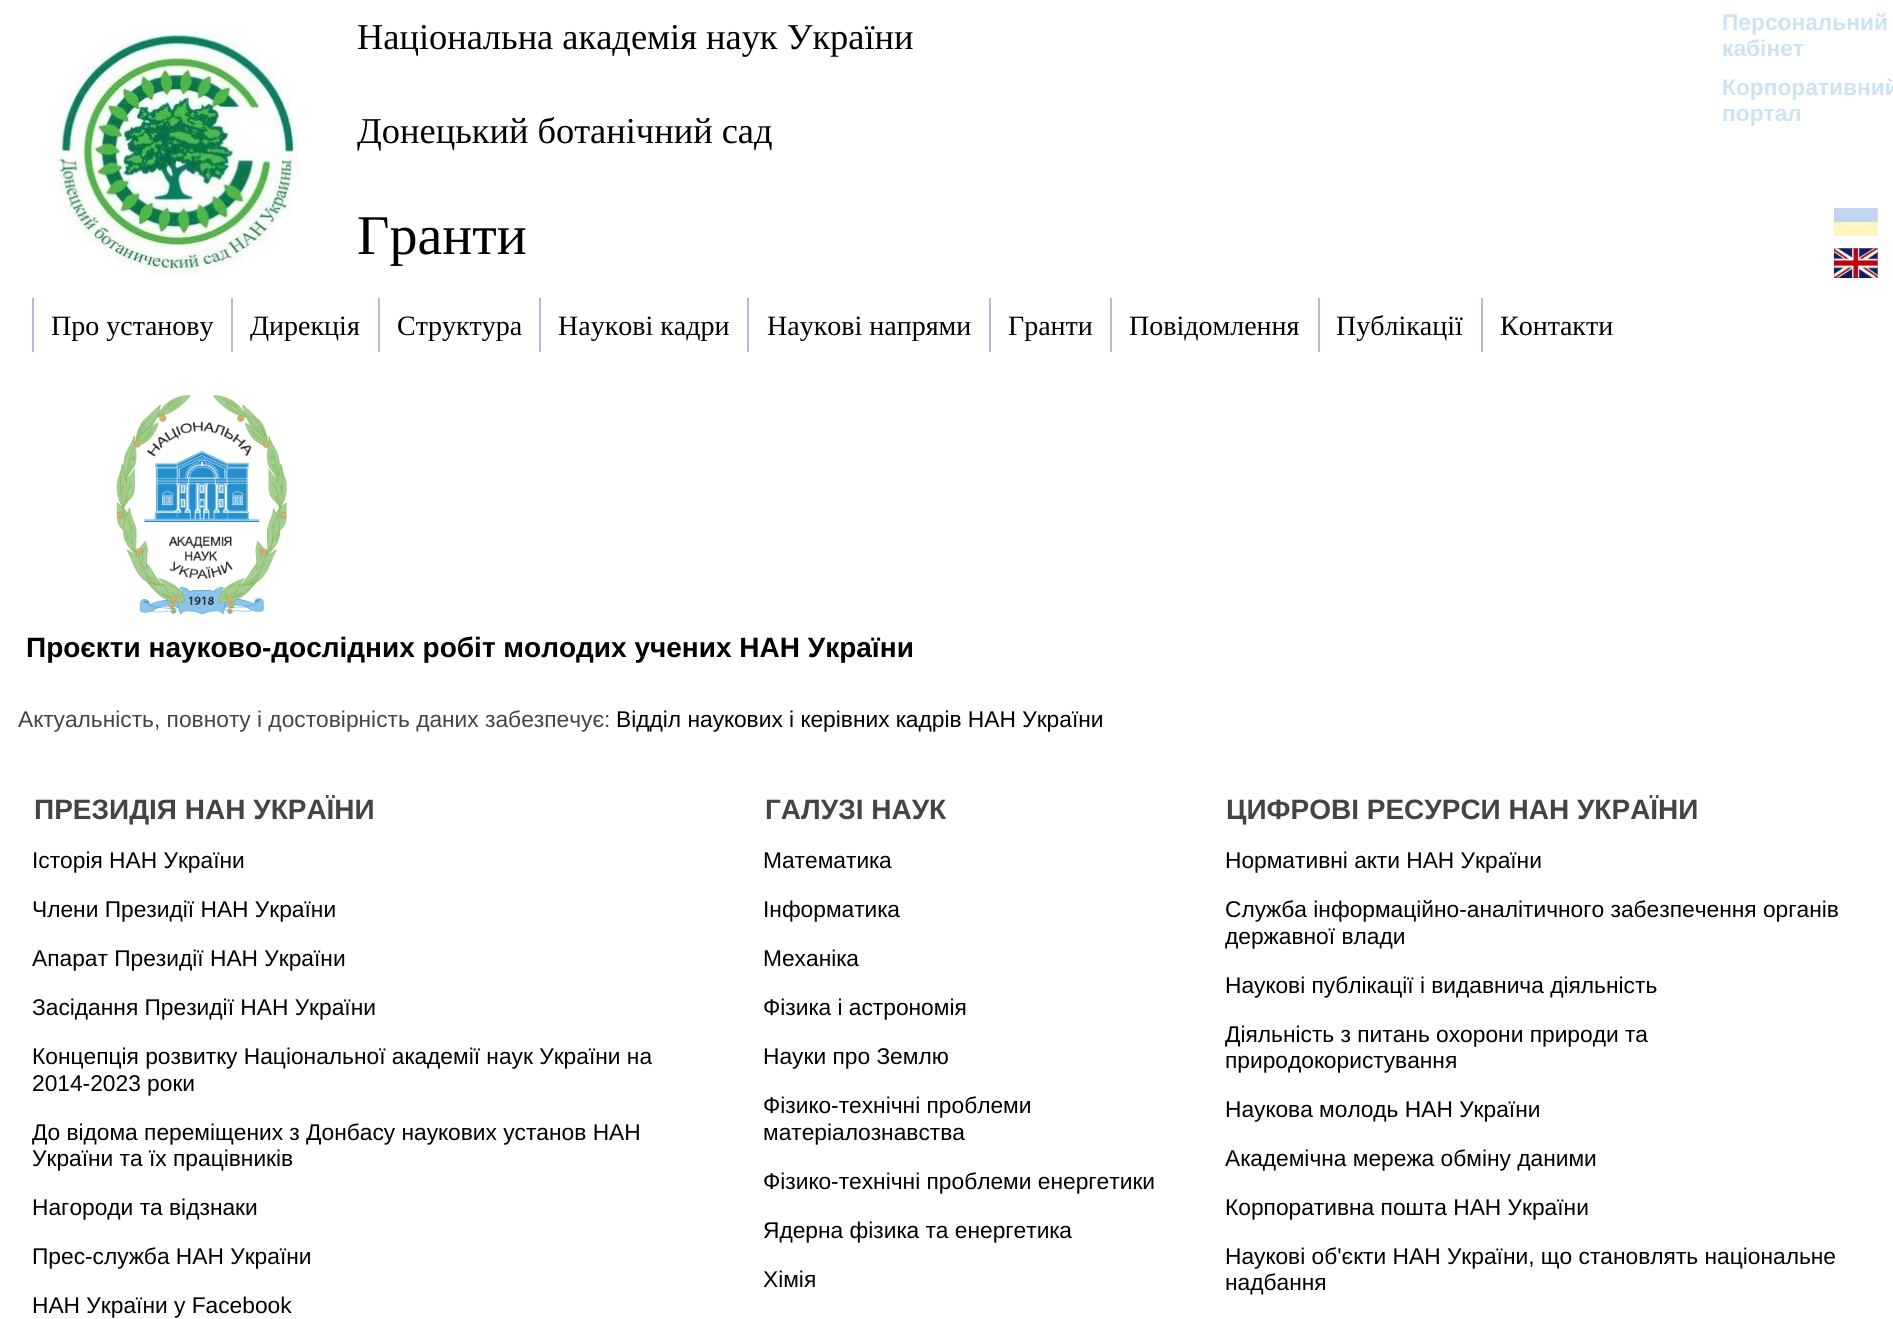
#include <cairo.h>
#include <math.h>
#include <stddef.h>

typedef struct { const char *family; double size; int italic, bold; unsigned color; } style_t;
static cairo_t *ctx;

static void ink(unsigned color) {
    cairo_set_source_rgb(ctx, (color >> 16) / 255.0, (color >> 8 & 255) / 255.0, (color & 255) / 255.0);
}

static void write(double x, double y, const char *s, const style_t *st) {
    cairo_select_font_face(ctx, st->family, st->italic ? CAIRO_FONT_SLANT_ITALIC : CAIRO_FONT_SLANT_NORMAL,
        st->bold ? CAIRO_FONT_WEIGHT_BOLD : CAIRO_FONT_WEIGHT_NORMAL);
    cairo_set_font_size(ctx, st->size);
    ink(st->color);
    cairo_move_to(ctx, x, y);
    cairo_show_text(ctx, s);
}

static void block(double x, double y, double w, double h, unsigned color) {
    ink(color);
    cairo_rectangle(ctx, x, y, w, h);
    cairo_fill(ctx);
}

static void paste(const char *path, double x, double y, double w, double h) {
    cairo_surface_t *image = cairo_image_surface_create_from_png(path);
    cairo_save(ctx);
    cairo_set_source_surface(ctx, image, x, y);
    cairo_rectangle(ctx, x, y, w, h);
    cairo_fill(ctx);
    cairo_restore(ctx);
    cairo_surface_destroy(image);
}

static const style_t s1 = {"Liberation Serif", 36.4, 0, 0, 0x000000};
static const style_t s2 = {"Liberation Sans", 22.75, 0, 1, 0xcce3f4};
static const style_t s3 = {"Liberation Serif", 56, 0, 0, 0x000000};
static const style_t s4 = {"Liberation Serif", 28, 0, 0, 0x000000};
static const style_t s5 = {"Liberation Sans", 28, 0, 1, 0x000000};
static const style_t s6 = {"Liberation Sans", 22.75, 0, 0, 0x444444};
static const style_t s7 = {"Liberation Sans", 22.75, 0, 0, 0x000000};
static const style_t s8 = {"Liberation Sans", 28, 0, 1, 0x444444};

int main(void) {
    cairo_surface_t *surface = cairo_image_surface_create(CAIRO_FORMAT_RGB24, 1893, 1319);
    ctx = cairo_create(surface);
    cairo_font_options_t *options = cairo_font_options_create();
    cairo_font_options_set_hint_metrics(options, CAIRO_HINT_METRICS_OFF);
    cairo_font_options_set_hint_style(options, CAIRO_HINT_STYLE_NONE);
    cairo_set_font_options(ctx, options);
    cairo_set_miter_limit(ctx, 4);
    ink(0xffffff);
    cairo_paint(ctx);
    paste("pic1.png", 52, 25, 247, 252);
    write(357, 49, "Національна академія наук України", &s1);
    write(1722, 30, "Персональний", &s2);
    write(1722, 56, "кабінет", &s2);
    write(1722, 95, "Корпоративний", &s2);
    write(1722, 121, "портал", &s2);
    write(357, 143, "Донецький ботанічний сад", &s1);
    paste("pic2.png", 1834, 208, 44, 28);
    paste("pic3.png", 1834, 248, 44, 30);
    write(357, 254, "Гранти", &s3);
    block(32, 298, 2, 54, 0xb2bdd3);
    write(51, 335, "Про установу", &s4);
    block(231, 298, 2, 54, 0xb2bdd3);
    write(250, 335, "Дирекція", &s4);
    block(378, 298, 2, 54, 0xb2bdd3);
    write(397, 335, "Структура", &s4);
    block(539, 298, 2, 54, 0xb2bdd3);
    write(558, 335, "Наукові кадри", &s4);
    block(747, 298, 2, 54, 0xb2bdd3);
    write(767, 335, "Наукові напрями", &s4);
    block(989, 298, 2, 54, 0xb2bdd3);
    write(1008, 335, "Гранти", &s4);
    block(1110, 298, 2, 54, 0xb2bdd3);
    write(1129, 335, "Повідомлення", &s4);
    block(1318, 298, 2, 54, 0xb2bdd3);
    write(1336, 335, "Публікації", &s4);
    block(1481, 298, 2, 54, 0xb2bdd3);
    write(1500, 335, "Контакти", &s4);
    paste("pic4.png", 116, 395, 171, 220);
    write(26, 657, "Проєкти науково-дослідних робіт молодих учених НАН України", &s5);
    write(18, 727, "Актуальність, повноту і достовірність даних забезпечує:", &s6);
    write(616, 727, "Відділ наукових і керівних кадрів НАН України", &s7);
    write(34, 819, "ПРЕЗИДІЯ НАН УКРАЇНИ", &s8);
    write(32, 868, "Історія НАН України", &s7);
    write(32, 917, "Члени Президії НАН України", &s7);
    write(32, 966, "Апарат Президії НАН України", &s7);
    write(32, 1015, "Засідання Президії НАН України", &s7);
    write(32, 1064, "Концепція розвитку Національної академії наук України на", &s7);
    write(32, 1091, "2014-2023 роки", &s7);
    write(32, 1140, "До відома переміщених з Донбасу наукових установ НАН", &s7);
    write(32, 1166, "України та їх працівників", &s7);
    write(32, 1215, "Нагороди та відзнаки", &s7);
    write(32, 1264, "Прес-служба НАН України", &s7);
    write(32, 1313, "НАН України у Facebook", &s7);
    write(765, 819, "ГАЛУЗІ НАУК", &s8);
    write(763, 868, "Математика", &s7);
    write(763, 917, "Інформатика", &s7);
    write(763, 966, "Механіка", &s7);
    write(763, 1015, "Фізика і астрономія", &s7);
    write(763, 1064, "Науки про Землю", &s7);
    write(763, 1113, "Фізико-технічні проблеми", &s7);
    write(763, 1140, "матеріалознавства", &s7);
    write(763, 1189, "Фізико-технічні проблеми енергетики", &s7);
    write(763, 1238, "Ядерна фізика та енергетика", &s7);
    write(763, 1287, "Хімія", &s7);
    write(1226, 819, "ЦИФРОВІ РЕСУРСИ НАН УКРАЇНИ", &s8);
    write(1225, 868, "Нормативні акти НАН України", &s7);
    write(1225, 917, "Служба інформаційно-аналітичного забезпечення органів", &s7);
    write(1225, 944, "державної влади", &s7);
    write(1225, 993, "Наукові публікації і видавнича діяльність", &s7);
    write(1225, 1042, "Діяльність з питань охорони природи та", &s7);
    write(1225, 1068, "природокористування", &s7);
    write(1225, 1117, "Наукова молодь НАН України", &s7);
    write(1225, 1166, "Академічна мережа обміну даними", &s7);
    write(1225, 1215, "Корпоративна пошта НАН України", &s7);
    write(1225, 1264, "Наукові об'єкти НАН України, що становлять національне", &s7);
    write(1225, 1290, "надбання", &s7);
    cairo_surface_write_to_png(surface, "screenshot.png");
    cairo_font_options_destroy(options);
    cairo_destroy(ctx);
    cairo_surface_destroy(surface);
    return 0;
}
